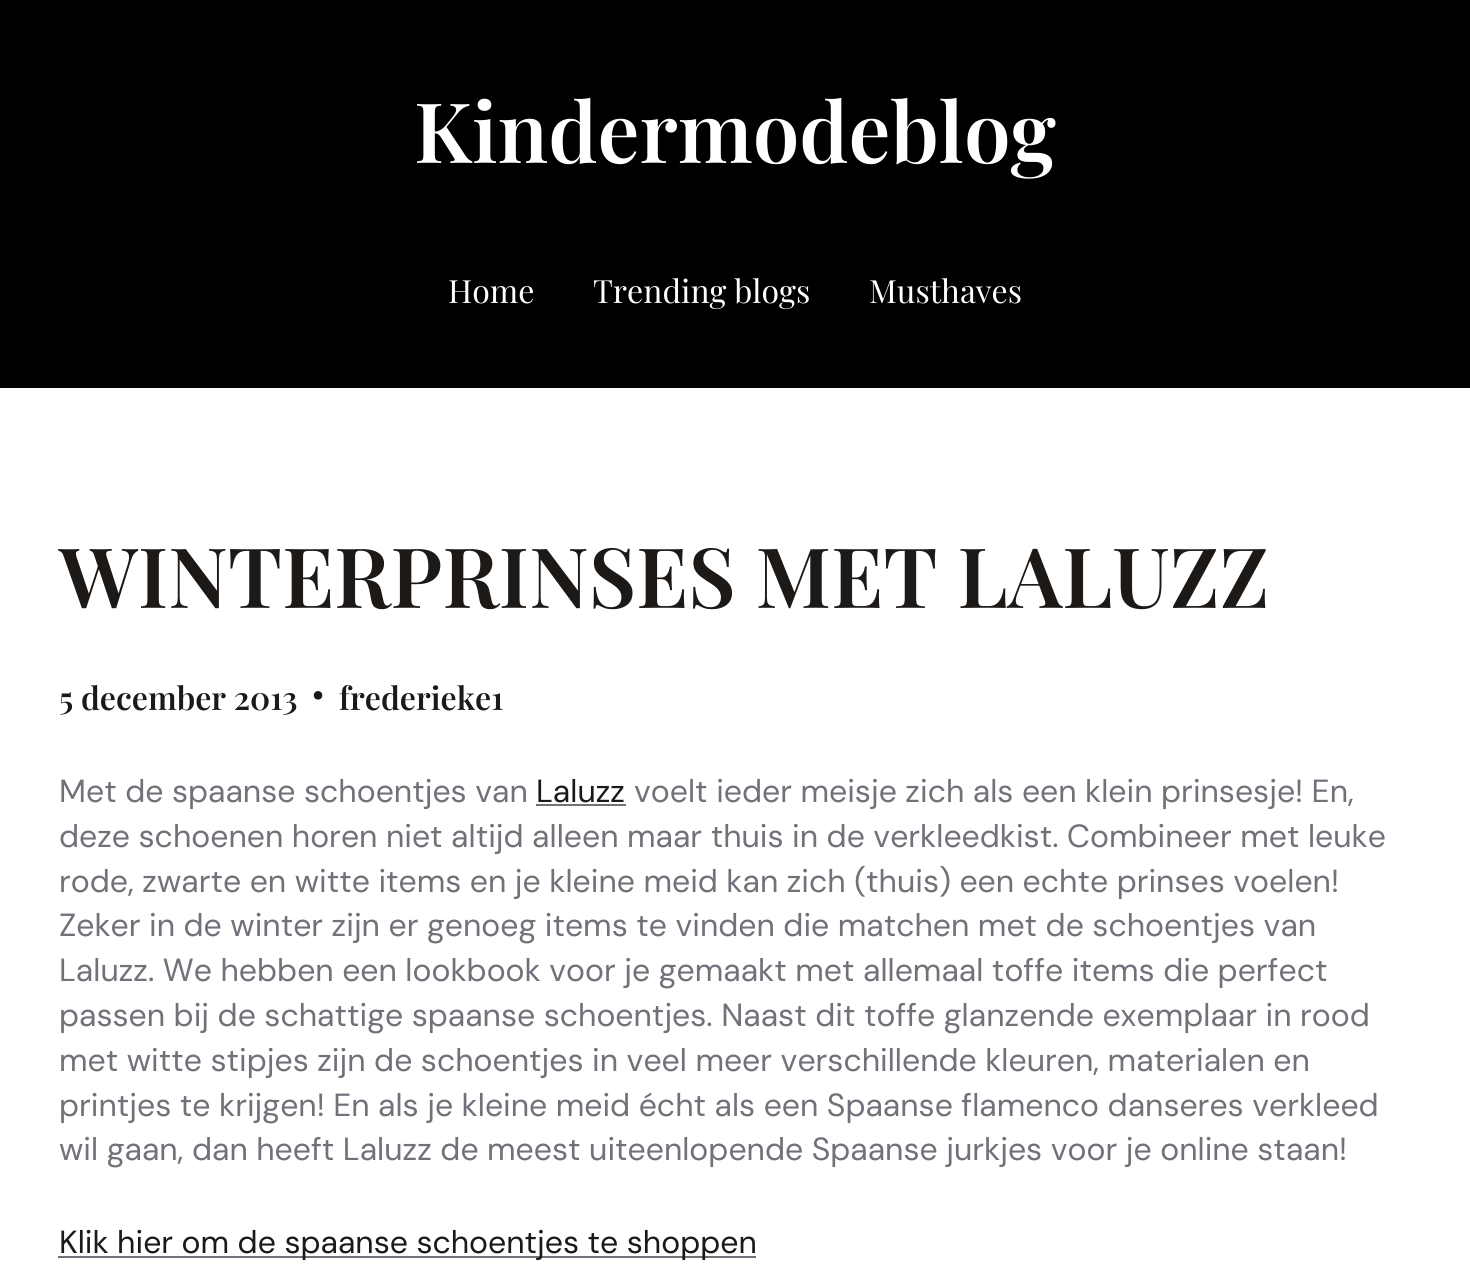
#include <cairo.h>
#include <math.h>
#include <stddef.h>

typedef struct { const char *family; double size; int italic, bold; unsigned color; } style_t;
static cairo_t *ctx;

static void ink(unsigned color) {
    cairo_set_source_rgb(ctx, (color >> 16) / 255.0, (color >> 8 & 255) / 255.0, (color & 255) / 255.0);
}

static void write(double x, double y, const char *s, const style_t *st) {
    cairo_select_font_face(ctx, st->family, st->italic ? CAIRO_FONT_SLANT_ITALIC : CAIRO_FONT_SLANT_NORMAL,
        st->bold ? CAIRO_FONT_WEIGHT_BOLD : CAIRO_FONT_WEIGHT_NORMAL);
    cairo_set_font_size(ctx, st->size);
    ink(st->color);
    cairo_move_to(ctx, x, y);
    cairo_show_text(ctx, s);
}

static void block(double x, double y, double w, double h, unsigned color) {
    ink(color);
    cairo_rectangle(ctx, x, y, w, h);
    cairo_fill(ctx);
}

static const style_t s1 = {"Playfair Display SemiBold", 83.3, 0, 0, 0xffffff};
static const style_t s2 = {"Playfair Display", 32, 0, 0, 0xffffff};
static const style_t s3 = {"Playfair Display SemiBold", 83.3, 0, 0, 0x1c1917};
static const style_t s4 = {"Playfair Display SemiBold", 32, 0, 0, 0x1c1917};
static const style_t s5 = {"DM Sans SemiBold", 32, 0, 0, 0x1c1917};
static const style_t s6 = {"DM Sans", 32, 0, 0, 0x71717a};
static const style_t s7 = {"DM Sans", 32, 0, 0, 0x1c1917};

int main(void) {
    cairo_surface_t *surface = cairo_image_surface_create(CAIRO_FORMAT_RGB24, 1470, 1270);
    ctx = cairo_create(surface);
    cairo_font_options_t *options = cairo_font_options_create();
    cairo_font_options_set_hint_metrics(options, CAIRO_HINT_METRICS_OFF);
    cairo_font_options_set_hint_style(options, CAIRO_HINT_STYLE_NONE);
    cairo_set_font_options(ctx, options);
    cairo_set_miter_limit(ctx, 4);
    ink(0xffffff);
    cairo_paint(ctx);
    block(0, 0, 1470, 388, 0x000000);
    write(414, 163, "Kindermodeblog", &s1);
    write(448, 303, "Home", &s2);
    write(593, 303, "Trending blogs", &s2);
    write(869, 303, "Musthaves", &s2);
    write(59, 608, "WINTERPRINSES MET LALUZZ", &s3);
    write(59, 710, "5 december 2013", &s4);
    write(312, 706, "•", &s5);
    write(339, 710, "frederieke1", &s4);
    write(59, 802, "Met de spaanse schoentjes van", &s6);
    write(536, 802, "Laluzz", &s7);
    block(536, 804, 90, 2, 0x71717a);
    write(634, 802, "voelt ieder meisje zich als een klein prinsesje! En,", &s6);
    write(59, 847, "deze schoenen horen niet altijd alleen maar thuis in de verkleedkist. Combineer met leuke", &s6);
    write(59, 892, "rode, zwarte en witte items en je kleine meid kan zich (thuis) een echte prinses voelen!", &s6);
    write(59, 936, "Zeker in de winter zijn er genoeg items te vinden die matchen met de schoentjes van", &s6);
    write(59, 981, "Laluzz. We hebben een lookbook voor je gemaakt met allemaal toffe items die perfect", &s6);
    write(59, 1026, "passen bij de schattige spaanse schoentjes. Naast dit toffe glanzende exemplaar in rood", &s6);
    write(59, 1071, "met witte stipjes zijn de schoentjes in veel meer verschillende kleuren, materialen en", &s6);
    write(59, 1116, "printjes te krijgen! En als je kleine meid écht als een Spaanse flamenco danseres verkleed", &s6);
    write(59, 1160, "wil gaan, dan heeft Laluzz de meest uiteenlopende Spaanse jurkjes voor je online staan!", &s6);
    block(58, 1256, 698, 2, 0x71717a);
    write(59, 1253, "Klik hier om de spaanse schoentjes te shoppen", &s7);
    cairo_surface_write_to_png(surface, "screenshot.png");
    cairo_font_options_destroy(options);
    cairo_destroy(ctx);
    cairo_surface_destroy(surface);
    return 0;
}
